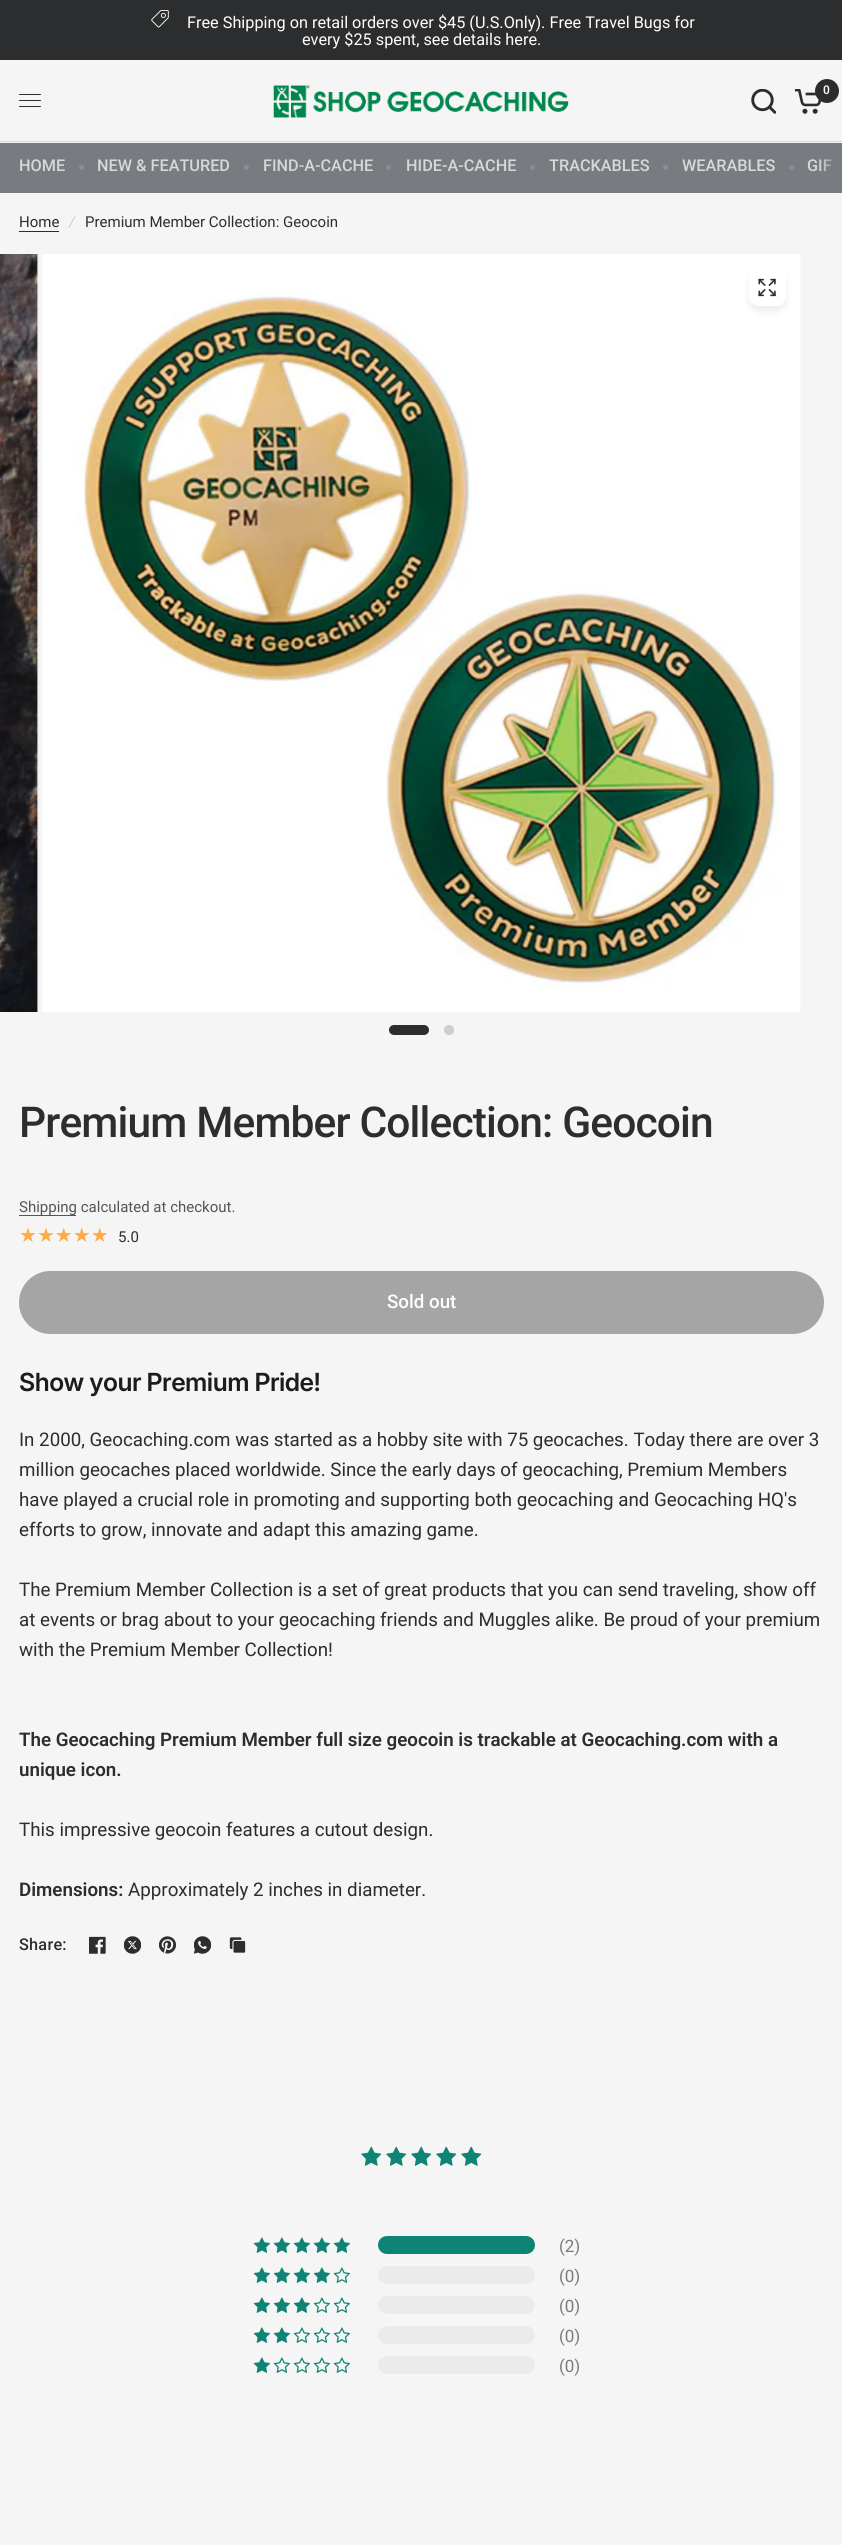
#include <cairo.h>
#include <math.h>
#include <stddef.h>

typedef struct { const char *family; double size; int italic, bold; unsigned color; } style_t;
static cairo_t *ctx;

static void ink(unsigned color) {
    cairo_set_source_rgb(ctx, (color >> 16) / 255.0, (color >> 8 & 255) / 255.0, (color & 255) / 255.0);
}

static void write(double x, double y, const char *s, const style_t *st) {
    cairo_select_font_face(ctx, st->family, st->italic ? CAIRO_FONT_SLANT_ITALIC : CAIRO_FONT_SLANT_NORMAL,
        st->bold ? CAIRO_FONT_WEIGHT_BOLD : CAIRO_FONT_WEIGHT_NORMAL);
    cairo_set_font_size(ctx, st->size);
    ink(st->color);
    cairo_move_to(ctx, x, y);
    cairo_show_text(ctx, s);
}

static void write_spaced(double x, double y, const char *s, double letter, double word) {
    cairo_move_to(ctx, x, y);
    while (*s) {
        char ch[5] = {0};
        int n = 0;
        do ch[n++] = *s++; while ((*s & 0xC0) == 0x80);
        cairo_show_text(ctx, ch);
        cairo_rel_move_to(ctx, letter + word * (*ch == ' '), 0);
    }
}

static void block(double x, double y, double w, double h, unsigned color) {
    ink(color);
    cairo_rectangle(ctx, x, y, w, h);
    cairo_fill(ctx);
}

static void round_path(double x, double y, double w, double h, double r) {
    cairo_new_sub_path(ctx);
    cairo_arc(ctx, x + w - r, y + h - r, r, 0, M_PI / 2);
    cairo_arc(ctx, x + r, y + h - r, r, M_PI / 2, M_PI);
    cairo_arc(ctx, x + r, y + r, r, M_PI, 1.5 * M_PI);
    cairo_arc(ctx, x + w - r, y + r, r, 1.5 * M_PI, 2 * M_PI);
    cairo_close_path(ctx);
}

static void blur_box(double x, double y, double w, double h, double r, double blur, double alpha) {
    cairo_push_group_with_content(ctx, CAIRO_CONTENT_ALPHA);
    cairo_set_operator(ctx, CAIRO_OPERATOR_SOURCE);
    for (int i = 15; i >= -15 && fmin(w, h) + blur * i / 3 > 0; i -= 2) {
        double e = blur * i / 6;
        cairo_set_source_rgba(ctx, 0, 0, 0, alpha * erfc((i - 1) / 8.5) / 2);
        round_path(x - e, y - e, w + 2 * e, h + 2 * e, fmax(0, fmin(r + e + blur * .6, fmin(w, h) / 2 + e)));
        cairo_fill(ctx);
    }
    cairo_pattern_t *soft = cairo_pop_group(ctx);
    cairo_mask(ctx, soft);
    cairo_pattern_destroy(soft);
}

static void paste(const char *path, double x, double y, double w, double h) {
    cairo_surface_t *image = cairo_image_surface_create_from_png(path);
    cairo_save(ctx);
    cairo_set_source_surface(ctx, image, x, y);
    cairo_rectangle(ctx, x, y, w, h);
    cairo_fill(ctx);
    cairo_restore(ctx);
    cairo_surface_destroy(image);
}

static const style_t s1 = {"Roboto", 16.25, 0, 0, 0xffffff};
static const style_t s2 = {"Roboto SemiBold", 12, 0, 0, 0xf5f5f5};
static const style_t s3 = {"Roboto Medium", 16.25, 0, 0, 0xd6d8d9};
static const style_t s4 = {"Roboto", 15, 0, 0, 0x2c2d2e};
static const style_t s5 = {"Roboto", 15, 1, 0, 0xcdcdcd};
static const style_t s6 = {"Roboto", 15, 0, 0, 0x545556};
static const style_t s7 = {"Roboto Medium", 18.75, 0, 0, 0xffffff};
static const style_t s8 = {"Roboto", 18.75, 0, 0, 0x2c2d2e};
static const style_t s9 = {"Roboto SemiBold", 18.75, 0, 0, 0x2c2d2e};
static const style_t s10 = {"Roboto", 17, 0, 0, 0x7b7b7b};

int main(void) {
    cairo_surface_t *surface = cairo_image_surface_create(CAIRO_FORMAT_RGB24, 842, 2545);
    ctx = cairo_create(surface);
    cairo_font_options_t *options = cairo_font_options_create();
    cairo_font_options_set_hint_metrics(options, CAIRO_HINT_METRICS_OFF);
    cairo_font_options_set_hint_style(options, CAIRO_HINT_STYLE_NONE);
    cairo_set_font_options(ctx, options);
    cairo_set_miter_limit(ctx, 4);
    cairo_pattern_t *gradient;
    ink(0x2c2d2e);
    cairo_paint(ctx);
    paste("pic1.png", 151, 10, 18, 18);
    write(187, 28, "Free Shipping on retail orders over $45 (U.S.Only). Free Travel Bugs for", &s1);
    write(302, 45, "every $25 spent, see details here.", &s1);
    block(0, 60, 842, 83, 0xf5f5f5);
    paste("pic2.png", 273, 85, 296, 33);
    paste("pic3.png", 751, 89, 25, 25);
    paste("pic4.png", 794, 89, 27, 25);
    ink(0x2c2d2e);
    cairo_arc(ctx, 827, 91, 12, 0, 2 * M_PI);
    cairo_fill(ctx);
    write(823, 94, "0", &s2);
    ink(0x2c2d2e);
    round_path(19, 94, 22, 1, 0.5);
    cairo_fill(ctx);
    round_path(19, 100, 22, 1, 0.5);
    cairo_fill(ctx);
    round_path(19, 106, 22, 1, 0.5);
    cairo_fill(ctx);
    block(0, 141, 842, 1, 0xdadce0);
    block(0, 143, 842, 50, 0x787c80);
    write(19, 171, "HOME", &s3);
    ink(0x8b8e92);
    cairo_new_path(ctx);
    cairo_arc(ctx, 81.5, 167.5, 2.5, 0, 2 * M_PI);
    cairo_fill(ctx);
    write(97, 171, "NEW & FEATURED", &s3);
    ink(0x8b8e92);
    cairo_new_path(ctx);
    cairo_arc(ctx, 246.5, 167.5, 2.5, 0, 2 * M_PI);
    cairo_fill(ctx);
    write(263, 171, "FIND-A-CACHE", &s3);
    ink(0x8b8e92);
    cairo_new_path(ctx);
    cairo_arc(ctx, 388.5, 167.5, 2.5, 0, 2 * M_PI);
    cairo_fill(ctx);
    write(406, 171, "HIDE-A-CACHE", &s3);
    ink(0x8b8e92);
    cairo_new_path(ctx);
    cairo_arc(ctx, 532.5, 167.5, 2.5, 0, 2 * M_PI);
    cairo_fill(ctx);
    write(549, 171, "TRACKABLES", &s3);
    ink(0x8b8e92);
    cairo_new_path(ctx);
    cairo_arc(ctx, 665.5, 167.5, 2.5, 0, 2 * M_PI);
    cairo_fill(ctx);
    write(682, 171, "WEARABLES", &s3);
    ink(0x8b8e92);
    cairo_new_path(ctx);
    cairo_arc(ctx, 791.5, 167.5, 2.5, 0, 2 * M_PI);
    cairo_fill(ctx);
    write(807, 171, "GIF", &s3);
    gradient = cairo_pattern_create_linear(818, 167, 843, 167);
    cairo_pattern_add_color_stop_rgba(gradient, 0, 0.471, 0.486, 0.502, 0);
    cairo_pattern_add_color_stop_rgba(gradient, 1, 0.471, 0.486, 0.502, 1);
    cairo_set_source(ctx, gradient);
    cairo_pattern_destroy(gradient);
    cairo_rectangle(ctx, 820, 159, 12, 12);
    cairo_fill(ctx);
    block(0, 193, 842, 2352, 0xf5f5f5);
    write(19, 227, "Home", &s4);
    block(19, 231, 40, 1, 0x2c2d2e);
    write(69, 227, "/", &s5);
    write(85, 227, "Premium Member Collection: Geocoin", &s4);
    paste("pic5.png", 0, 254, 39, 758);
    paste("pic6.png", 42, 254, 759, 758);
    ink(0x000000);
    blur_box(749, 274, 37, 37, 10, 4, 0.08);
    ink(0xffffff);
    round_path(749, 269, 37, 37, 10);
    cairo_fill(ctx);
    paste("pic7.png", 758, 278, 18, 19);
    ink(0x2c2d2e);
    round_path(389, 1025, 40, 10, 5);
    cairo_fill(ctx);
    ink(0xcdcdcd);
    cairo_arc(ctx, 449, 1030, 5, 0, 2 * M_PI);
    cairo_fill(ctx);
    cairo_select_font_face(ctx, "Roboto Medium", CAIRO_FONT_SLANT_NORMAL, CAIRO_FONT_WEIGHT_NORMAL);
    cairo_set_font_size(ctx, 42.5);
    ink(0x2c2d2e);
    write_spaced(19, 1137, "Premium Member Collection: Geocoin", -0.85, 0);
    block(19, 1215, 57, 1, 0x545556);
    write(19, 1212, "Shipping calculated at checkout.", &s6);
    cairo_select_font_face(ctx, "DejaVu Sans", CAIRO_FONT_SLANT_NORMAL, CAIRO_FONT_WEIGHT_NORMAL);
    cairo_set_font_size(ctx, 20);
    gradient = cairo_pattern_create_linear(19, 1235, 108, 1235);
    cairo_pattern_add_color_stop_rgba(gradient, 1, 1, 0.667, 0.278, 1);
    cairo_pattern_add_color_stop_rgba(gradient, 1, 0.882, 0.882, 0.882, 1);
    cairo_set_source(ctx, gradient);
    cairo_pattern_destroy(gradient);
    cairo_move_to(ctx, 19, 1242);
    cairo_show_text(ctx, "★★★★★");
    write(118, 1242, "5.0", &s4);
    ink(0xa5a5a5);
    round_path(19, 1271, 805, 63, 31.5);
    cairo_fill(ctx);
    write(387, 1308, "Sold out", &s7);
    cairo_select_font_face(ctx, "Inter SemiBold", CAIRO_FONT_SLANT_NORMAL, CAIRO_FONT_WEIGHT_NORMAL);
    cairo_set_font_size(ctx, 25);
    ink(0x1a1c1d);
    write_spaced(19, 1391, "Show your Premium Pride!", -0.5, 0);
    write(19, 1446, "In 2000, Geocaching.com was started as a hobby site with 75 geocaches. Today there are over 3", &s8);
    write(19, 1476, "million geocaches placed worldwide. Since the early days of geocaching, Premium Members", &s8);
    write(19, 1506, "have played a crucial role in promoting and supporting both geocaching and Geocaching HQ's", &s8);
    write(19, 1536, "efforts to grow, innovate and adapt this amazing game.", &s8);
    write(19, 1596, "The Premium Member Collection is a set of great products that you can send traveling, show off", &s8);
    write(19, 1626, "at events or brag about to your geocaching friends and Muggles alike. Be proud of your premium", &s8);
    write(19, 1656, "with the Premium Member Collection!", &s8);
    write(19, 1746, "The Geocaching Premium Member full size geocoin is trackable at Geocaching.com with a", &s9);
    write(19, 1776, "unique icon.", &s9);
    write(19, 1836, "This impressive geocoin features a cutout design.", &s8);
    write(19, 1896, "Dimensions:", &s9);
    write(128, 1896, "Approximately 2 inches in diameter.", &s8);
    cairo_select_font_face(ctx, "Roboto Medium", CAIRO_FONT_SLANT_NORMAL, CAIRO_FONT_WEIGHT_NORMAL);
    cairo_set_font_size(ctx, 16.25);
    write_spaced(19, 1950, "Share:", 0.25, 0);
    paste("pic8.png", 89, 1936, 17, 18);
    paste("pic9.png", 124, 1936, 17, 18);
    paste("pic10.png", 159, 1936, 17, 18);
    paste("pic11.png", 194, 1936, 17, 18);
    paste("pic12.png", 229, 1937, 17, 16);
    paste("pic13.png", 361, 2146, 21, 20);
    paste("pic13.png", 386, 2146, 21, 20);
    paste("pic13.png", 411, 2146, 21, 20);
    paste("pic13.png", 436, 2146, 21, 20);
    paste("pic13.png", 461, 2146, 21, 20);
    paste("pic14.png", 253, 2237, 17, 16);
    paste("pic14.png", 273, 2237, 17, 16);
    paste("pic14.png", 293, 2237, 17, 16);
    paste("pic14.png", 313, 2237, 17, 16);
    paste("pic14.png", 333, 2237, 17, 16);
    ink(0x108474);
    round_path(378, 2236, 157, 18, 9);
    cairo_fill(ctx);
    write(559, 2252, "(2)", &s10);
    paste("pic14.png", 253, 2267, 17, 16);
    paste("pic14.png", 273, 2267, 17, 16);
    paste("pic14.png", 293, 2267, 17, 16);
    paste("pic14.png", 313, 2267, 17, 16);
    paste("pic15.png", 333, 2267, 17, 16);
    ink(0xebebeb);
    round_path(378, 2266, 157, 18, 9);
    cairo_fill(ctx);
    write(559, 2282, "(0)", &s10);
    paste("pic14.png", 253, 2297, 17, 16);
    paste("pic14.png", 273, 2297, 17, 16);
    paste("pic14.png", 293, 2297, 17, 16);
    paste("pic15.png", 313, 2297, 17, 16);
    paste("pic15.png", 333, 2297, 17, 16);
    ink(0xebebeb);
    round_path(378, 2296, 157, 18, 9);
    cairo_fill(ctx);
    write(559, 2312, "(0)", &s10);
    paste("pic14.png", 253, 2327, 17, 16);
    paste("pic14.png", 273, 2327, 17, 16);
    paste("pic15.png", 293, 2327, 17, 16);
    paste("pic15.png", 313, 2327, 17, 16);
    paste("pic15.png", 333, 2327, 17, 16);
    ink(0xebebeb);
    round_path(378, 2326, 157, 18, 9);
    cairo_fill(ctx);
    write(559, 2342, "(0)", &s10);
    paste("pic14.png", 253, 2357, 17, 16);
    paste("pic15.png", 273, 2357, 17, 16);
    paste("pic15.png", 293, 2357, 17, 16);
    paste("pic15.png", 313, 2357, 17, 16);
    paste("pic15.png", 333, 2357, 17, 16);
    ink(0xebebeb);
    round_path(378, 2356, 157, 18, 9);
    cairo_fill(ctx);
    write(559, 2372, "(0)", &s10);
    cairo_surface_write_to_png(surface, "screenshot.png");
    cairo_font_options_destroy(options);
    cairo_destroy(ctx);
    cairo_surface_destroy(surface);
    return 0;
}
